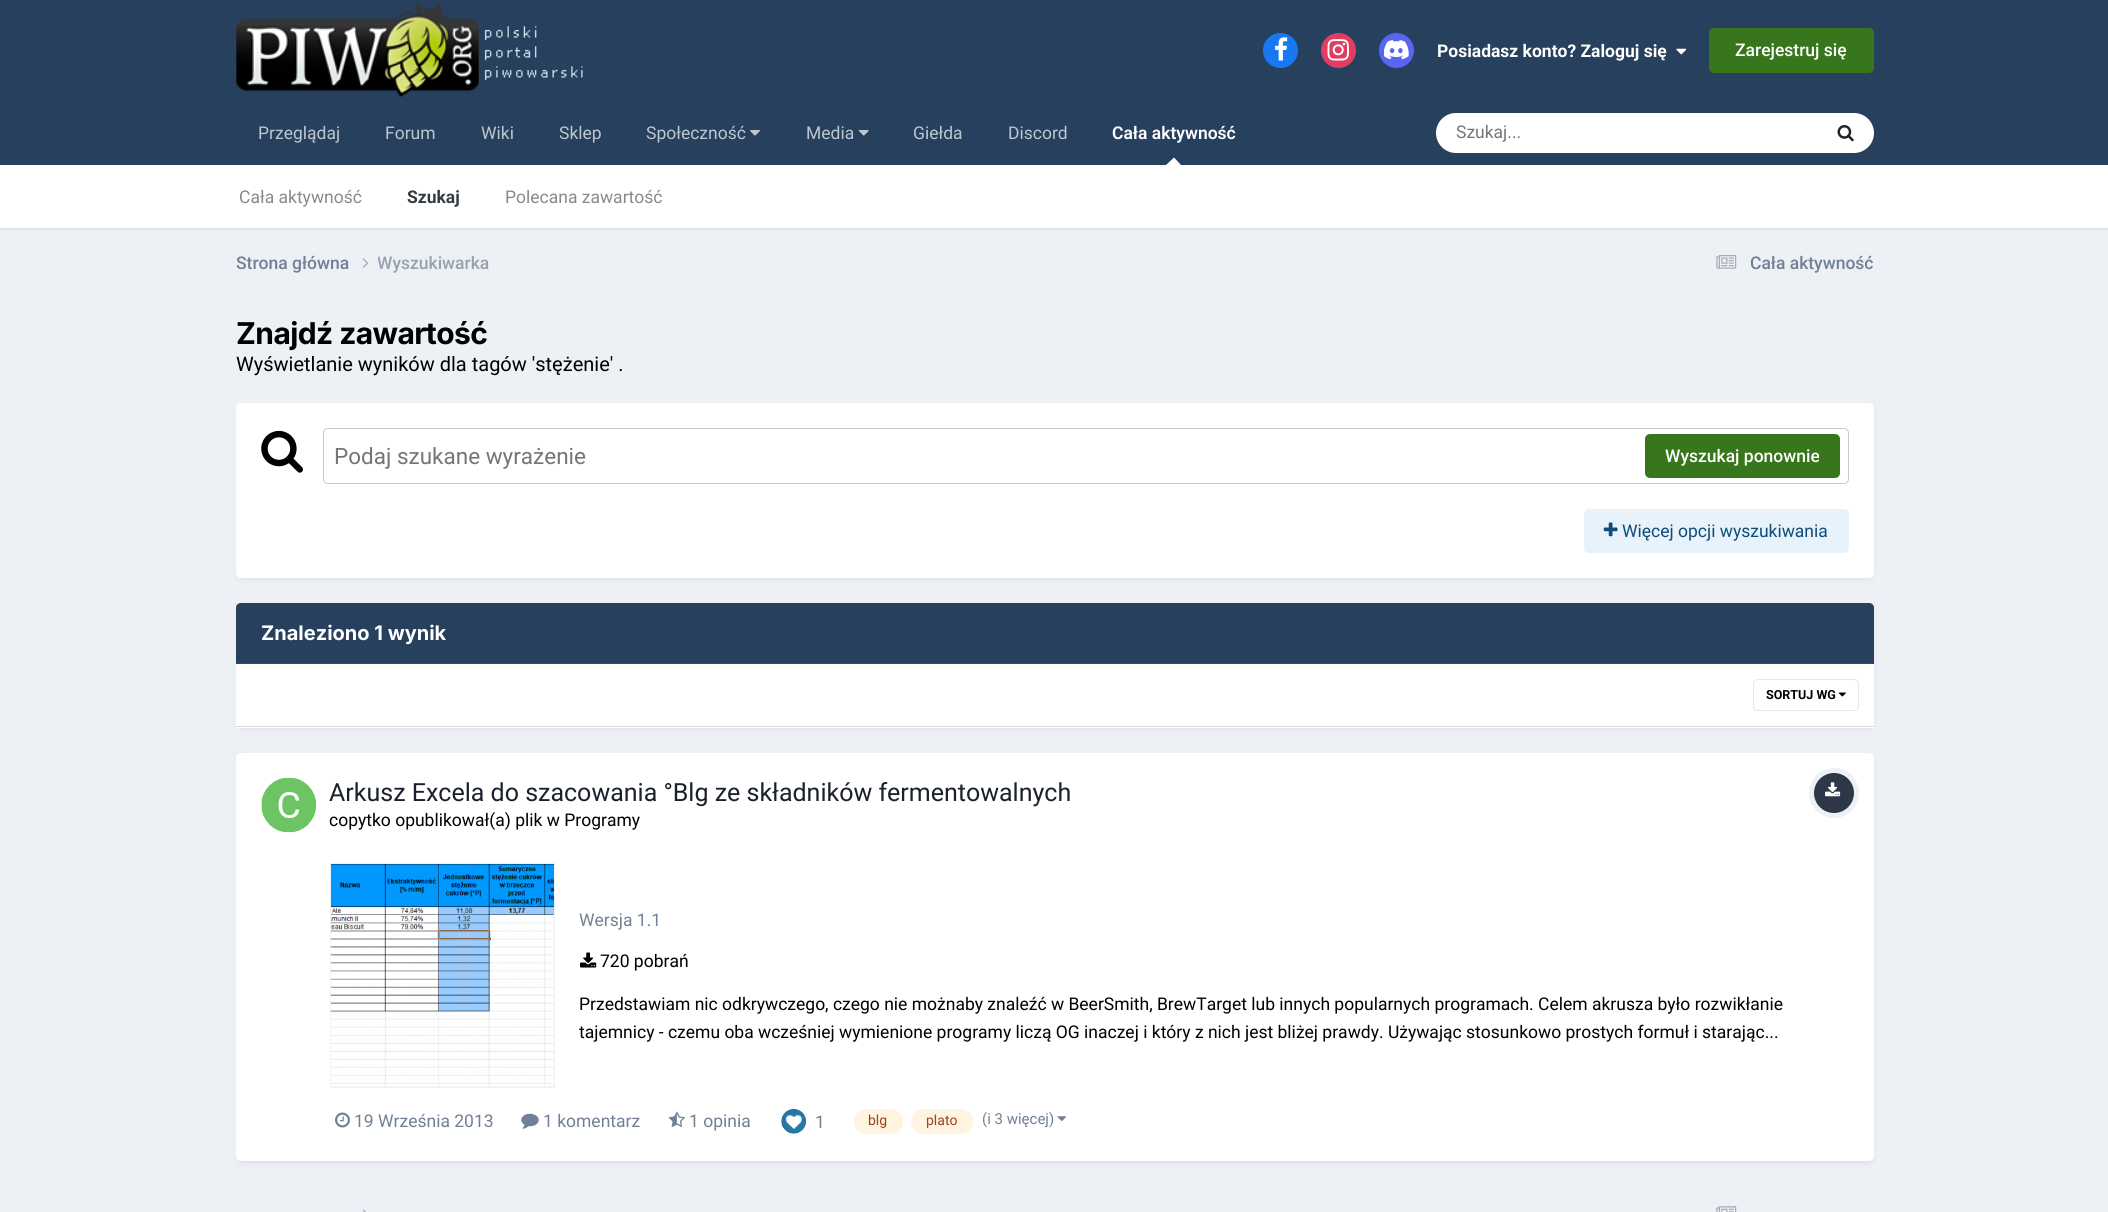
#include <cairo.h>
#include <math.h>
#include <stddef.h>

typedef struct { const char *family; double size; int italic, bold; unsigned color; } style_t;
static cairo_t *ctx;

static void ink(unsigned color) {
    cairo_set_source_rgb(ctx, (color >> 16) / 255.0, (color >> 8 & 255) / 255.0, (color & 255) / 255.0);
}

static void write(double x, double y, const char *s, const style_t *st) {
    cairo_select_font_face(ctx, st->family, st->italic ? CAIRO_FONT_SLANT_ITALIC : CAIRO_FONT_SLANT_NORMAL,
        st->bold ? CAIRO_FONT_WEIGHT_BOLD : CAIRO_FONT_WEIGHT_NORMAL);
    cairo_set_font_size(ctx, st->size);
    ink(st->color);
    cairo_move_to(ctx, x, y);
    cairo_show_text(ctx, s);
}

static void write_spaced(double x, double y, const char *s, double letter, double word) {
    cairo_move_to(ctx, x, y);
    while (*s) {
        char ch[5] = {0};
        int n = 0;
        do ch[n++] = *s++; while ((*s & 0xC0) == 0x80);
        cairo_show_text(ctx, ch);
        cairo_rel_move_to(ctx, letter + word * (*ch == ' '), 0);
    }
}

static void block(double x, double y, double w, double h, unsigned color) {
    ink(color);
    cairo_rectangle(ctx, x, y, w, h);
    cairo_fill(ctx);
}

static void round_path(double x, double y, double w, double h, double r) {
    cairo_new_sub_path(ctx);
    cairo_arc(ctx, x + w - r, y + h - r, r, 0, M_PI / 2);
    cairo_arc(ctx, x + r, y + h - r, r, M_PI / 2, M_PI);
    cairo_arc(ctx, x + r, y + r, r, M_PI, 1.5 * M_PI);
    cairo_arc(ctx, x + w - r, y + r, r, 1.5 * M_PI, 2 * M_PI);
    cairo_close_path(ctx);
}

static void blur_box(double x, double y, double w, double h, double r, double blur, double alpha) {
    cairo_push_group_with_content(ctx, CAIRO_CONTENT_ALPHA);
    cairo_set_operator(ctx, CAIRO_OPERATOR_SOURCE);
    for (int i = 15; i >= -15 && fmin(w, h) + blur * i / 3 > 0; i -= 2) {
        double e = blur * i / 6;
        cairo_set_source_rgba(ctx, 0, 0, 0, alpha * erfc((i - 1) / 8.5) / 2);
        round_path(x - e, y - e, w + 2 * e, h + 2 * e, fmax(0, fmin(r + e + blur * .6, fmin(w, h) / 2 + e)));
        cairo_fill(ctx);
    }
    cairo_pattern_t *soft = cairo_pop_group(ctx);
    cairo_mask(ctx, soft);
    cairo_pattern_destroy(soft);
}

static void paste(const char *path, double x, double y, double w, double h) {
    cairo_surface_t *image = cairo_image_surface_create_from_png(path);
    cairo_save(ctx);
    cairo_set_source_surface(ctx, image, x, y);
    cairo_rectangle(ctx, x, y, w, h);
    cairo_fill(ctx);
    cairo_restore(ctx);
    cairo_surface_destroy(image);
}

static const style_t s1 = {"Roboto", 17.5, 0, 1, 0xffffff};
static const style_t s2 = {"Roboto Medium", 17.5, 0, 0, 0xffffff};
static const style_t s3 = {"Roboto SemiBold", 17.5, 0, 0, 0xffffff};
static const style_t s4 = {"Roboto", 17.5, 0, 0, 0x868a8d};
static const style_t s5 = {"Roboto", 17.5, 0, 1, 0x353c41};
static const style_t s6 = {"Roboto", 17.5, 0, 0, 0xbec6cf};
static const style_t s7 = {"Roboto", 17.5, 0, 0, 0x757575};
static const style_t s8 = {"Roboto Medium", 17.5, 0, 0, 0x718096};
static const style_t s9 = {"Roboto Medium", 17.5, 0, 0, 0x96a2b2};
static const style_t s10 = {"Roboto", 20, 0, 0, 0x000000};
static const style_t s11 = {"Roboto", 22.5, 0, 0, 0x757575};
static const style_t s12 = {"Roboto", 17.5, 0, 0, 0x0e4c79};
static const style_t s13 = {"Inter", 20, 0, 1, 0xffffff};
static const style_t s14 = {"Roboto", 12.5, 0, 1, 0x000000};
static const style_t s15 = {"Roboto", 25, 0, 0, 0x1a202c};
static const style_t s16 = {"Roboto", 17.5, 0, 0, 0x000000};
static const style_t s17 = {"Roboto", 17.5, 0, 0, 0x718096};
static const style_t s18 = {"Roboto", 14, 0, 0, 0x9c4221};
static const style_t s19 = {"Roboto", 15, 0, 0, 0x718096};

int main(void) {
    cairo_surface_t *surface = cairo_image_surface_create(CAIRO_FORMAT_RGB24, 2108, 1212);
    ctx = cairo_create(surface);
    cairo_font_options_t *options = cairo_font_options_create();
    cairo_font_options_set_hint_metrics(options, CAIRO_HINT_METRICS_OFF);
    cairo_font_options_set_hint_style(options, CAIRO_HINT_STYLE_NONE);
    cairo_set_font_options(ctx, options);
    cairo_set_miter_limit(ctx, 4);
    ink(0xedf0f4);
    cairo_paint(ctx);
    block(0, 0, 2108, 165, 0x27405e);
    paste("pic1.png", 236, 3, 347, 94);
    ink(0x1778f2);
    cairo_arc(ctx, 1280.5, 50.5, 17.5, 0, 2 * M_PI);
    cairo_fill(ctx);
    paste("pic2.png", 1275, 37, 13, 24);
    ink(0xe13d62);
    cairo_arc(ctx, 1338.5, 50.5, 17.5, 0, 2 * M_PI);
    cairo_fill(ctx);
    paste("pic3.png", 1327, 39, 22, 22);
    ink(0x5865f2);
    cairo_arc(ctx, 1396.5, 50.5, 17.5, 0, 2 * M_PI);
    cairo_fill(ctx);
    paste("pic4.png", 1384, 40, 25, 20);
    write(1437, 57, "Posiadasz konto? Zaloguj się", &s1);
    paste("pic5.png", 1676, 48, 11, 7);
    ink(0x38761d);
    round_path(1709, 28, 165, 45, 5);
    cairo_fill(ctx);
    write(1735, 56, "Zarejestruj się", &s2);
    write(1112, 139, "Cała aktywność", &s3);
    ink(0x000000);
    blur_box(0, 166, 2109, 63, 0, 1, 0.1);
    ink(0xffffff);
    cairo_new_path(ctx);
    cairo_move_to(ctx, 1181, 165);
    cairo_line_to(ctx, 1166, 165);
    cairo_line_to(ctx, 1174, 157.5);
    cairo_close_path(ctx);
    cairo_fill(ctx);
    block(0, 165, 2108, 63, 0xffffff);
    write(239, 203, "Cała aktywność", &s4);
    write(407, 203, "Szukaj", &s5);
    write(505, 203, "Polecana zawartość", &s4);
    write(258, 139, "Przeglądaj", &s6);
    write(385, 139, "Forum", &s6);
    write(481, 139, "Wiki", &s6);
    write(559, 139, "Sklep", &s6);
    write(646, 139, "Społeczność", &s6);
    paste("pic6.png", 750, 130, 10, 6);
    write(806, 139, "Media", &s6);
    paste("pic7.png", 858, 130, 11, 6);
    write(913, 139, "Giełda", &s6);
    write(1008, 139, "Discord", &s6);
    ink(0xffffff);
    round_path(1436, 113, 438, 40, 20);
    cairo_fill(ctx);
    write(1456, 138, "Szukaj...", &s7);
    paste("pic8.png", 1837, 125, 17, 17);
    write(236, 269, "Strona główna", &s8);
    paste("pic9.png", 362, 258, 7, 10);
    cairo_save(ctx);
    cairo_rectangle(ctx, 378, 250, 111, 26);
    cairo_clip(ctx);
    write(377, 269, "Wyszukiwarka", &s9);
    cairo_restore(ctx);
    paste("pic10.png", 1716, 255, 21, 14);
    write(1750, 269, "Cała aktywność", &s8);
    cairo_select_font_face(ctx, "Inter", CAIRO_FONT_SLANT_NORMAL, CAIRO_FONT_WEIGHT_BOLD);
    cairo_set_font_size(ctx, 30);
    ink(0x000000);
    write_spaced(236, 344, "Znajdź zawartość", -0.6, 0);
    write(236, 371, "Wyświetlanie wyników dla tagów 'stężenie' .", &s10);
    ink(0x2d3748);
    blur_box(238, 406, 1635, 173, 4, 2.5, 0.1);
    ink(0xffffff);
    round_path(236, 403, 1638, 175, 5);
    cairo_fill(ctx);
    paste("pic11.png", 261, 430, 42, 43);
    round_path(323.5, 428.5, 1525, 55, 4.5);
    ink(0xc6ccd5);
    cairo_set_line_width(ctx, 1);
    cairo_stroke(ctx);
    write(334, 464, "Podaj szukane wyrażenie", &s11);
    ink(0x38761d);
    round_path(1645, 434, 195, 44, 5);
    cairo_fill(ctx);
    write(1665, 462, "Wyszukaj ponownie", &s2);
    ink(0xe8f2fa);
    round_path(1584, 509, 265, 44, 5);
    cairo_fill(ctx);
    paste("pic12.png", 1603, 522, 15, 15);
    write(1622, 537, "Więcej opcji wyszukiwania", &s12);
    ink(0x2d3748);
    blur_box(238, 606, 1635, 123, 4, 2.5, 0.1);
    ink(0x27405e);
    cairo_new_path(ctx);
    cairo_move_to(ctx, 241, 603);
    cairo_line_to(ctx, 1869, 603);
    cairo_curve_to(ctx, 1872, 603, 1874, 605, 1874, 608);
    cairo_line_to(ctx, 1874, 664);
    cairo_line_to(ctx, 236, 664);
    cairo_line_to(ctx, 236, 608);
    cairo_curve_to(ctx, 236, 605, 238, 603, 241, 603);
    cairo_close_path(ctx);
    cairo_fill(ctx);
    block(236, 663, 1638, 1, 0x324a66);
    write(261, 640, "Znaleziono 1 wynik", &s13);
    block(236, 664, 1638, 64, 0xffffff);
    block(236, 726, 1638, 1, 0xd9d9d9);
    paste("pic13.png", 1838, 692, 8, 5);
    round_path(1753.5, 679.5, 105, 31, 4.5);
    ink(0xe6e6e6);
    cairo_stroke(ctx);
    write(1766, 699, "SORTUJ WG", &s14);
    ink(0x2d3748);
    blur_box(238, 756, 1635, 407, 4, 2.5, 0.1);
    ink(0xffffff);
    round_path(236, 753, 1638, 408, 5);
    cairo_fill(ctx);
    paste("pic14.png", 261, 778, 55, 55);
    write(329, 801, "Arkusz Excela do szacowania °Blg ze składników fermentowalnych", &s15);
    write(329, 826, "copytko opublikował(a) plik w Programy", &s16);
    cairo_new_path(ctx);
    cairo_arc(ctx, 1834, 793, 22.5, 0, 2 * M_PI);
    ink(0xedf0f4);
    cairo_set_line_width(ctx, 5);
    cairo_stroke(ctx);
    ink(0x2d3748);
    cairo_arc(ctx, 1834, 793, 20, 0, 2 * M_PI);
    cairo_fill(ctx);
    paste("pic15.png", 1825, 782, 16, 15);
    block(331, 1086, 223, 1, 0xedf2f7);
    paste("pic16.png", 331, 864, 223, 223);
    cairo_rectangle(ctx, 330.5, 863.5, 224, 224);
    cairo_set_line_width(ctx, 1);
    cairo_stroke(ctx);
    write(579, 926, "Wersja 1.1", &s17);
    paste("pic17.png", 580, 952, 17, 16);
    write(600, 967, "720 pobrań", &s16);
    write(579, 1010, "Przedstawiam nic odkrywczego, czego nie możnaby znaleźć w BeerSmith, BrewTarget lub innych popularnych programach. Celem akrusza było rozwikłanie", &s16);
    write(579, 1038, "tajemnicy - czemu oba wcześniej wymienione programy liczą OG inaczej i który z nich jest bliżej prawdy. Używając stosunkowo prostych formuł i starając...", &s16);
    paste("pic18.png", 335, 1112, 15, 16);
    write(354, 1127, "19 Września 2013", &s17);
    paste("pic19.png", 521, 1113, 18, 16);
    write(543, 1127, "1 komentarz", &s17);
    paste("pic20.png", 668, 1111, 17, 16);
    write(689, 1127, "1 opinia", &s17);
    paste("pic21.png", 781, 1108, 26, 26);
    write(815, 1128, "1", &s17);
    ink(0xfff4df);
    round_path(854, 1109, 49, 25, 12.5);
    cairo_fill(ctx);
    write(868, 1125, "blg", &s18);
    ink(0xfff4df);
    round_path(911, 1109, 62, 25, 12.5);
    cairo_fill(ctx);
    write(926, 1125, "plato", &s18);
    write(982, 1124, "(i 3 więcej)", &s19);
    paste("pic22.png", 1057, 1116, 9, 5);
    paste("pic23.png", 362, 1209, 4, 3);
    paste("pic24.png", 1716, 1206, 21, 6);
    cairo_surface_write_to_png(surface, "screenshot.png");
    cairo_font_options_destroy(options);
    cairo_destroy(ctx);
    cairo_surface_destroy(surface);
    return 0;
}
